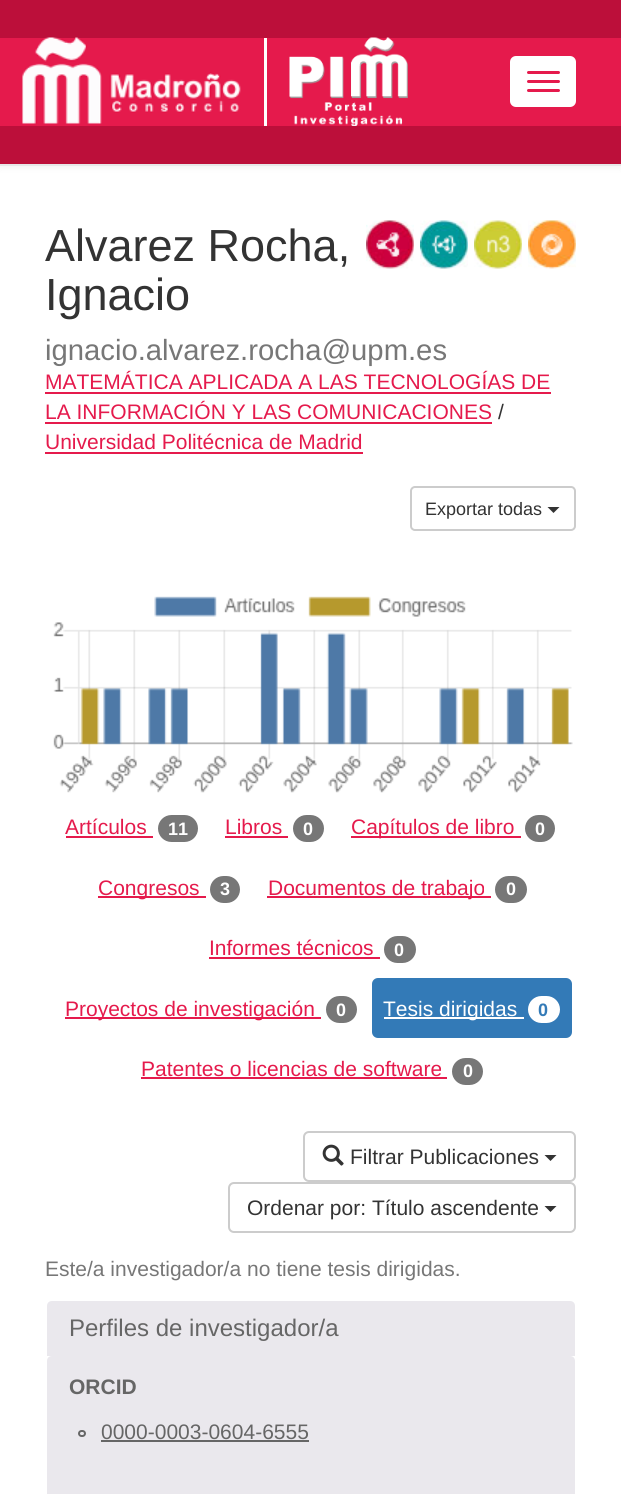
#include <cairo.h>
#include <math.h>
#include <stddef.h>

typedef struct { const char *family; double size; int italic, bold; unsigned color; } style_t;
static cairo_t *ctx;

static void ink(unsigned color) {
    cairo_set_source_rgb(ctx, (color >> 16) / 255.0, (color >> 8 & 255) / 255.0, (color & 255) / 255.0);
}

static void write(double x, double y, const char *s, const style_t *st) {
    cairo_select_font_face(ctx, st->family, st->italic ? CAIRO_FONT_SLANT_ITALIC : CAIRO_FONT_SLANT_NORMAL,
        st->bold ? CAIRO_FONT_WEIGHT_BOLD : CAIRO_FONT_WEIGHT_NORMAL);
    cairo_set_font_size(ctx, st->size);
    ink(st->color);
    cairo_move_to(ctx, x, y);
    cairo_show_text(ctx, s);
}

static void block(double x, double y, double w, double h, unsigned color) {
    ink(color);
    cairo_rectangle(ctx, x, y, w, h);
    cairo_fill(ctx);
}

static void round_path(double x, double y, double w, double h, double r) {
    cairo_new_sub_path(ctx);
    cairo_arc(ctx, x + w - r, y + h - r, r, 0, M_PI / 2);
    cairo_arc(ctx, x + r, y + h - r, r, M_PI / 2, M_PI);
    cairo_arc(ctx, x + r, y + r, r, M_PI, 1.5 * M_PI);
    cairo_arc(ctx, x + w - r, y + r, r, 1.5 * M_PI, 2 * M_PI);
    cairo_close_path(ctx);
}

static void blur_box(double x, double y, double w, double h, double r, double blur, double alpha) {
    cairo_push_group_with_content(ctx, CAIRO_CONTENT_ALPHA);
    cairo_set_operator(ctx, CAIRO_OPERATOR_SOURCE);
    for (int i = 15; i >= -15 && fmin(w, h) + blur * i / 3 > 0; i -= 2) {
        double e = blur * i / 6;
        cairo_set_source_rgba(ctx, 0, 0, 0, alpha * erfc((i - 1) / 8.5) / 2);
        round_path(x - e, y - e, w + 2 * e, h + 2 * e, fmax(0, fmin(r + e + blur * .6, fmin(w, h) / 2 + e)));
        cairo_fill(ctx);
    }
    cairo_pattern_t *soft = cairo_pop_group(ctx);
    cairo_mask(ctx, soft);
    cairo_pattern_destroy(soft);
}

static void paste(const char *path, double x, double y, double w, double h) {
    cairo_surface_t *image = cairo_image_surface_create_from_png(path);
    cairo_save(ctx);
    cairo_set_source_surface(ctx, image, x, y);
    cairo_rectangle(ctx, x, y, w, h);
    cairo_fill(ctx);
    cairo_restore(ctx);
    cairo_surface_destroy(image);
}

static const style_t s1 = {"Liberation Sans", 45, 0, 0, 0x333333};
static const style_t s2 = {"Liberation Sans", 29.25, 0, 0, 0x777777};
static const style_t s3 = {"Liberation Sans", 21, 0, 0, 0xe51a4c};
static const style_t s4 = {"Liberation Sans", 21, 0, 0, 0x333333};
static const style_t s5 = {"Liberation Sans", 18, 0, 0, 0x333333};
static const style_t s6 = {"Liberation Sans", 18, 0, 1, 0xffffff};
static const style_t s7 = {"Liberation Sans", 21, 0, 0, 0xffffff};
static const style_t s8 = {"Liberation Sans", 18, 0, 1, 0x337ab7};
static const style_t s9 = {"Liberation Sans", 21, 0, 0, 0x777777};
static const style_t s10 = {"Liberation Sans", 24, 0, 0, 0x666666};
static const style_t s11 = {"Liberation Sans", 21, 0, 1, 0x666666};
static const style_t s12 = {"Liberation Sans", 21, 0, 0, 0x666666};

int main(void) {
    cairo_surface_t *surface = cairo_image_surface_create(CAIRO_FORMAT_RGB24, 621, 1494);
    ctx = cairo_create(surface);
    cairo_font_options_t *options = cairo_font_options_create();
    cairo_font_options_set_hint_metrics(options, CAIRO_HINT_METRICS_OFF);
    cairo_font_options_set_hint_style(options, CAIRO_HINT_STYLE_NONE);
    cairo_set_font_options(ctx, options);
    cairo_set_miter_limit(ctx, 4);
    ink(0xffffff);
    cairo_paint(ctx);
    ink(0x000000);
    blur_box(0, 2, 621, 165, 0, 4, 0.07);
    block(0, 164, 621, 2, 0xe7e7e7);
    block(0, 38, 621, 88, 0xe51a4c);
    block(0, 0, 621, 38, 0xbc0f3a);
    block(0, 126, 621, 38, 0xbc0f3a);
    block(264, 38, 3, 88, 0xffffff);
    paste("pic1.png", 22, 37, 219, 87);
    paste("pic2.png", 289, 37, 119, 89);
    round_path(510, 56, 66, 51, 6);
    cairo_fill(ctx);
    ink(0xe51a4c);
    round_path(527, 71, 33, 3, 1.5);
    cairo_fill(ctx);
    round_path(527, 80, 33, 3, 1.5);
    cairo_fill(ctx);
    round_path(527, 89, 33, 3, 1.5);
    cairo_fill(ctx);
    write(45, 261, "Alvarez Rocha,", &s1);
    write(45, 310, "Ignacio", &s1);
    write(45, 360, "ignacio.alvarez.rocha@upm.es", &s2);
    paste("pic3.png", 366, 220, 48, 49);
    paste("pic4.png", 420, 220, 48, 49);
    paste("pic5.png", 474, 220, 48, 49);
    paste("pic6.png", 528, 220, 48, 49);
    write(45, 389, "MATEMÁTICA APLICADA A LAS TECNOLOGÍAS DE", &s3);
    block(45, 392, 506, 2, 0xe51a4c);
    write(45, 419, "LA INFORMACIÓN Y LAS COMUNICACIONES", &s3);
    block(45, 422, 447, 2, 0xe51a4c);
    write(498, 419, "/", &s4);
    write(45, 449, "Universidad Politécnica de Madrid", &s3);
    block(45, 452, 318, 2, 0xe51a4c);
    round_path(411, 487, 164, 43, 4);
    ink(0xcccccc);
    cairo_stroke(ctx);
    write(425, 515, "Exportar todas", &s5);
    cairo_new_path(ctx);
    cairo_move_to(ctx, 547.5, 507);
    cairo_line_to(ctx, 559.5, 507);
    cairo_line_to(ctx, 553.5, 513);
    cairo_close_path(ctx);
    cairo_fill(ctx);
    paste("pic7.png", 53, 596, 520, 197);
    write(65, 834, "Artículos", &s3);
    block(66, 836, 87, 2, 0xe51a4c);
    ink(0x777777);
    round_path(158, 815, 40, 27, 13.5);
    cairo_fill(ctx);
    write(168, 835, "11", &s6);
    write(225, 834, "Libros", &s3);
    block(225, 836, 63, 2, 0xe51a4c);
    ink(0x777777);
    round_path(293, 815, 31, 27, 13.5);
    cairo_fill(ctx);
    write(303, 835, "0", &s6);
    block(351, 836, 170, 2, 0xe51a4c);
    write(351, 834, "Capítulos de libro", &s3);
    ink(0x777777);
    round_path(525, 815, 30, 27, 13.5);
    cairo_fill(ctx);
    write(535, 835, "0", &s6);
    block(98, 896, 108, 2, 0xe51a4c);
    write(98, 895, "Congresos", &s3);
    ink(0x777777);
    round_path(210, 876, 30, 27, 13.5);
    cairo_fill(ctx);
    write(220, 895, "3", &s6);
    block(267, 896, 224, 2, 0xe51a4c);
    write(268, 895, "Documentos de trabajo", &s3);
    ink(0x777777);
    round_path(495, 876, 32, 27, 13.5);
    cairo_fill(ctx);
    write(506, 895, "0", &s6);
    write(209, 955, "Informes técnicos", &s3);
    block(209, 957, 171, 2, 0xe51a4c);
    ink(0x777777);
    round_path(384, 936, 32, 27, 13.5);
    cairo_fill(ctx);
    write(394, 956, "0", &s6);
    block(65, 1017, 256, 2, 0xe51a4c);
    write(65, 1016, "Proyectos de investigación", &s3);
    ink(0x777777);
    round_path(326, 996, 31, 27, 13.5);
    cairo_fill(ctx);
    write(336, 1016, "0", &s6);
    ink(0x337ab7);
    round_path(372, 978, 200, 60, 6);
    cairo_fill(ctx);
    block(384, 1017, 140, 2, 0xffffff);
    write(383, 1016, "Tesis dirigidas", &s7);
    round_path(528, 996, 32, 27, 13.5);
    cairo_fill(ctx);
    write(538, 1016, "0", &s8);
    write(141, 1076, "Patentes o licencias de software", &s3);
    block(141, 1077, 306, 2, 0xe51a4c);
    ink(0x777777);
    round_path(452, 1058, 31, 27, 13.5);
    cairo_fill(ctx);
    write(463, 1077, "0", &s6);
    round_path(304, 1132, 271, 49, 5);
    ink(0xcccccc);
    cairo_stroke(ctx);
    paste("pic8.png", 322, 1144, 22, 22);
    write(350, 1164, "Filtrar Publicaciones", &s4);
    cairo_new_path(ctx);
    cairo_move_to(ctx, 544.5, 1155);
    cairo_line_to(ctx, 556.5, 1155);
    cairo_line_to(ctx, 550.5, 1161);
    cairo_close_path(ctx);
    cairo_fill(ctx);
    round_path(229, 1183, 346, 49, 5);
    ink(0xcccccc);
    cairo_stroke(ctx);
    write(247, 1215, "Ordenar por: Título ascendente", &s4);
    cairo_new_path(ctx);
    cairo_move_to(ctx, 544.5, 1206);
    cairo_line_to(ctx, 556.5, 1206);
    cairo_line_to(ctx, 550.5, 1212);
    cairo_close_path(ctx);
    cairo_fill(ctx);
    write(45, 1276, "Este/a investigador/a no tiene tesis dirigidas.", &s9);
    ink(0xeae8ed);
    cairo_new_path(ctx);
    cairo_move_to(ctx, 52, 1301);
    cairo_line_to(ctx, 570, 1301);
    cairo_curve_to(ctx, 573, 1301, 575, 1303, 575, 1306);
    cairo_line_to(ctx, 575, 1356);
    cairo_line_to(ctx, 47, 1356);
    cairo_line_to(ctx, 47, 1306);
    cairo_curve_to(ctx, 47, 1303, 49, 1301, 52, 1301);
    cairo_close_path(ctx);
    cairo_fill(ctx);
    write(69, 1336, "Perfiles de investigador/a", &s10);
    ink(0xeae8ed);
    cairo_new_path(ctx);
    cairo_move_to(ctx, 52, 1356);
    cairo_line_to(ctx, 570, 1356);
    cairo_curve_to(ctx, 573, 1356, 575, 1358, 575, 1361);
    cairo_line_to(ctx, 575, 1463);
    cairo_line_to(ctx, 47, 1463);
    cairo_line_to(ctx, 47, 1361);
    cairo_curve_to(ctx, 47, 1358, 49, 1356, 52, 1356);
    cairo_close_path(ctx);
    cairo_fill(ctx);
    write(69, 1394, "ORCID", &s11);
    round_path(79, 1431, 6, 5, 2.5);
    cairo_stroke(ctx);
    write(101, 1439, "0000-0003-0604-6555", &s12);
    block(101, 1440, 208, 2, 0x666666);
    block(47, 1463, 528, 31, 0xeae8ed);
    cairo_surface_write_to_png(surface, "screenshot.png");
    cairo_font_options_destroy(options);
    cairo_destroy(ctx);
    cairo_surface_destroy(surface);
    return 0;
}
